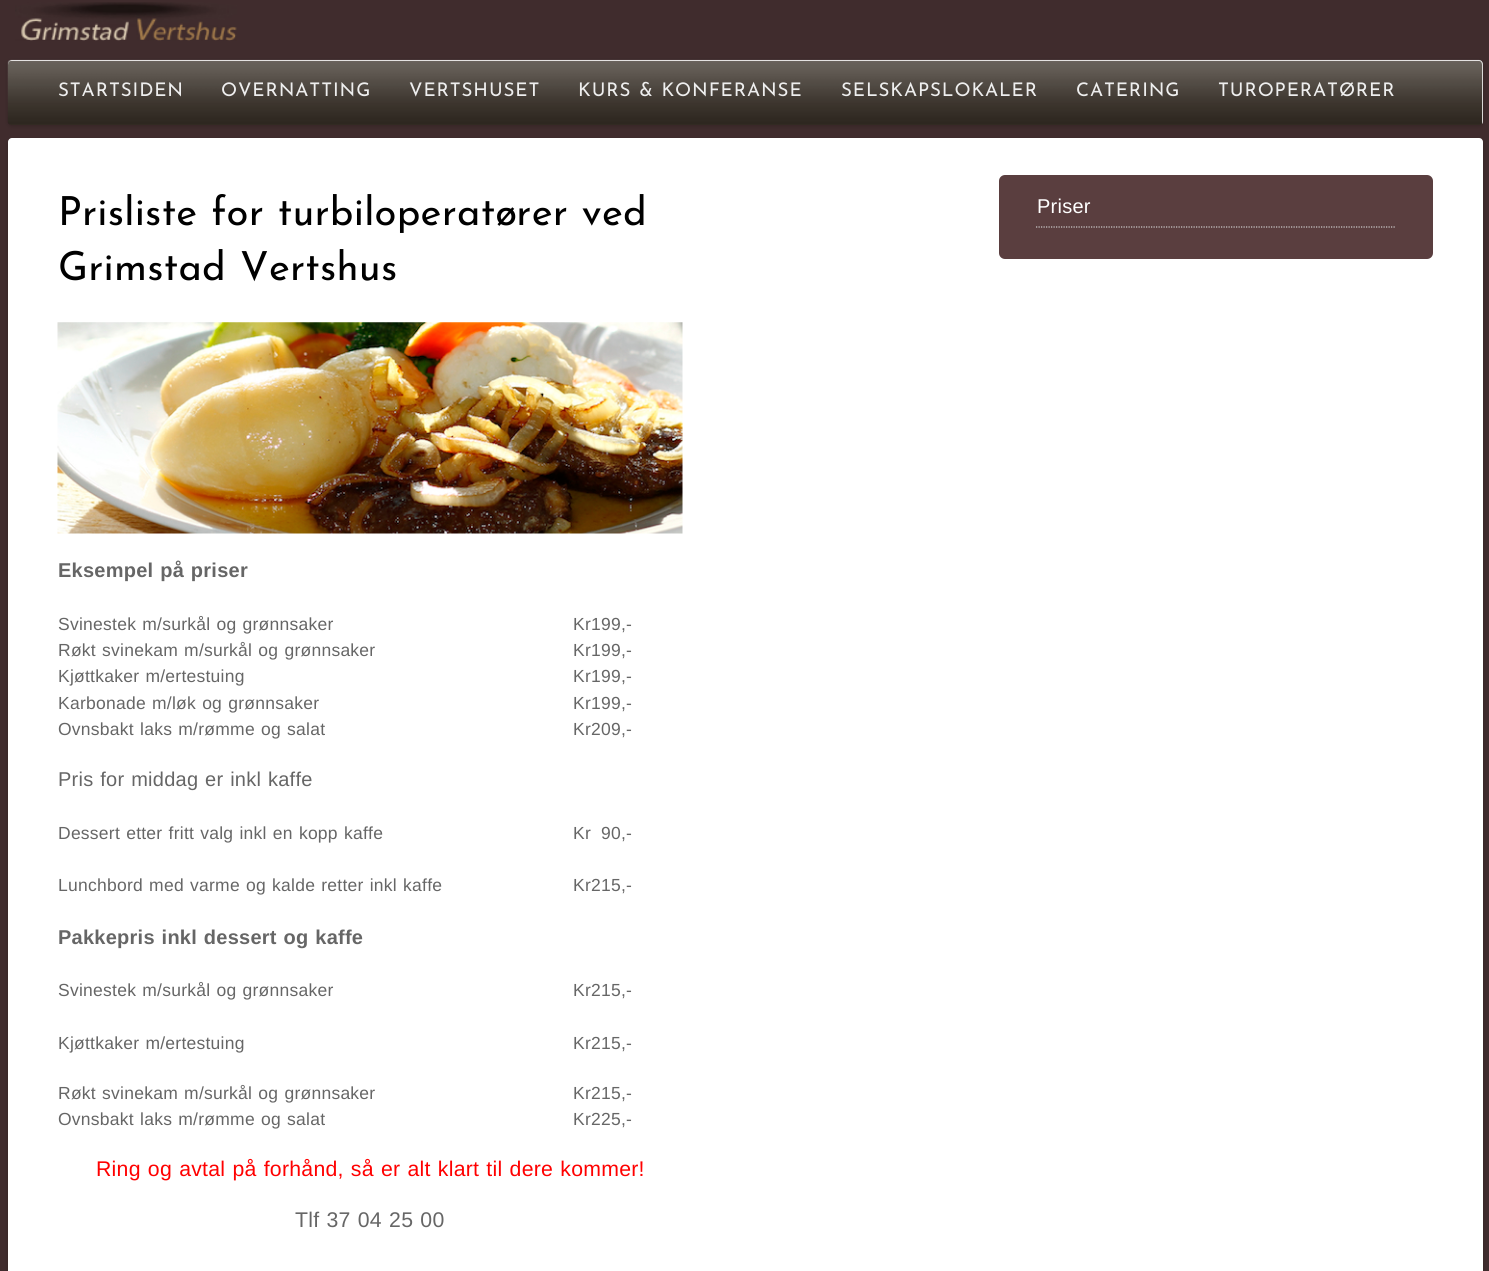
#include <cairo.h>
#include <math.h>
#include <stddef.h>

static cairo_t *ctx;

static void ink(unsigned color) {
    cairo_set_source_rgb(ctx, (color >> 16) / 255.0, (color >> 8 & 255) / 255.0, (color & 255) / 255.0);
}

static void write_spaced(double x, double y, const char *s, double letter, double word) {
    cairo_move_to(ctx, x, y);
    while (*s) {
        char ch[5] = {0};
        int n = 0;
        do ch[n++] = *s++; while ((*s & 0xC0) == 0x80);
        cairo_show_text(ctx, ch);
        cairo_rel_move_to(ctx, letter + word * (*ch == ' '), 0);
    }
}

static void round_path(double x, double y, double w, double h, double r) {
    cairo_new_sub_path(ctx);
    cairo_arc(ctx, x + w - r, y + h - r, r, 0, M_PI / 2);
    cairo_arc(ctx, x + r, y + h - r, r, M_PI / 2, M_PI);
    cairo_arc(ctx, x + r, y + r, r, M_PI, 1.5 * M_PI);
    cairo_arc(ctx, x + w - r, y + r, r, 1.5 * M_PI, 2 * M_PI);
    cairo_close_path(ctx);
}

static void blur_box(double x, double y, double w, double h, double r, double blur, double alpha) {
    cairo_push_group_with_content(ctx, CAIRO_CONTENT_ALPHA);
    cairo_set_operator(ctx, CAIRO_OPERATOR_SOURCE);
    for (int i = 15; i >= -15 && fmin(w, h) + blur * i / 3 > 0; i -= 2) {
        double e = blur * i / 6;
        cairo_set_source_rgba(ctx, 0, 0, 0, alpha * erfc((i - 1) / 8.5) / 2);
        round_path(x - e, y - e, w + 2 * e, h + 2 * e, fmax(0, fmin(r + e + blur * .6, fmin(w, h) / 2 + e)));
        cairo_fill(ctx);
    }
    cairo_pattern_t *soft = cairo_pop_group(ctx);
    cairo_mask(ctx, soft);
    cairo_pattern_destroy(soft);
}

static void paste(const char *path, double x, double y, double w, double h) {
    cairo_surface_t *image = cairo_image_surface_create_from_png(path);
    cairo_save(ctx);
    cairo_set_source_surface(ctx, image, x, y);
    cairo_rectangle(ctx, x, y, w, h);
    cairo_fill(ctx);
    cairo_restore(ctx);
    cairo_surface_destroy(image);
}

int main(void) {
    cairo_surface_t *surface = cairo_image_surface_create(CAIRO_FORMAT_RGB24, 1489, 1271);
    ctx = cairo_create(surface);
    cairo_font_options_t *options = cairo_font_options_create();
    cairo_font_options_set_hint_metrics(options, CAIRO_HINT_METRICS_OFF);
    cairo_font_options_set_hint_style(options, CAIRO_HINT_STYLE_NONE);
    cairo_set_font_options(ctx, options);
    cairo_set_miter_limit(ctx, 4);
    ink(0x402c2d);
    cairo_paint(ctx);
    paste("pic1.png", 15, 2, 222, 39);
    ink(0x000000);
    blur_box(8, 61, 1475, 65, 4, 2, 0.2);
    ink(0x372e25);
    round_path(8, 60, 1475, 65, 4);
    cairo_fill(ctx);
    paste("pic2.png", 7, 59, 1476, 66);
    cairo_set_source_rgba(ctx, 1, 1, 1, 0.81);
    cairo_new_path(ctx);
    cairo_move_to(ctx, 11, 61);
    cairo_line_to(ctx, 1479, 61);
    cairo_curve_to(ctx, 1481, 61, 1482, 63, 1482, 65);
    cairo_line_to(ctx, 1482, 124);
    cairo_curve_to(ctx, 1483, 123, 1483, 122, 1483, 121);
    cairo_line_to(ctx, 1483, 64);
    cairo_curve_to(ctx, 1483, 62, 1481, 60, 1479, 60);
    cairo_line_to(ctx, 12, 60);
    cairo_curve_to(ctx, 10, 60, 8, 62, 8, 64);
    cairo_line_to(ctx, 8, 65);
    cairo_curve_to(ctx, 8, 63, 9, 61, 11, 61);
    cairo_close_path(ctx);
    cairo_fill(ctx);
    cairo_select_font_face(ctx, "Josefin Sans", CAIRO_FONT_SLANT_NORMAL, CAIRO_FONT_WEIGHT_NORMAL);
    cairo_set_font_size(ctx, 18.75);
    ink(0xeeeeee);
    write_spaced(58, 96, "STARTSIDEN", 0.9, 0);
    write_spaced(221, 96, "OVERNATTING", 0.9, 0);
    write_spaced(409, 96, "VERTSHUSET", 0.9, 0);
    write_spaced(578, 96, "KURS & KONFERANSE", 0.9, 1);
    write_spaced(841, 96, "SELSKAPSLOKALER", 0.9, 0);
    write_spaced(1076, 96, "CATERING", 0.9, 0);
    write_spaced(1218, 96, "TUROPERATØRER", 0.9, 0);
    ink(0x000000);
    blur_box(8, 140, 1475, 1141, 4, 2, 0.2);
    ink(0xffffff);
    round_path(8, 138, 1475, 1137, 4);
    cairo_fill(ctx);
    cairo_set_font_size(ctx, 40);
    ink(0x000000);
    write_spaced(58, 225, "Prisliste for turbiloperatører ved", 0.25, 1);
    write_spaced(58, 280, "Grimstad Vertshus", 0.25, 1);
    paste("pic3.png", 57, 322, 626, 212);
    cairo_select_font_face(ctx, "Liberation Sans", CAIRO_FONT_SLANT_NORMAL, CAIRO_FONT_WEIGHT_BOLD);
    cairo_set_font_size(ctx, 20);
    ink(0x666666);
    write_spaced(58, 577, "Eksempel på priser", 0.25, 1);
    cairo_select_font_face(ctx, "Liberation Sans", CAIRO_FONT_SLANT_NORMAL, CAIRO_FONT_WEIGHT_NORMAL);
    cairo_set_font_size(ctx, 17.5);
    write_spaced(58, 630, "Svinestek m/surkål og grønnsaker", 0.25, 1);
    write_spaced(573, 630, "Kr199,-", 0.25, 0);
    write_spaced(58, 656, "Røkt svinekam m/surkål og grønnsaker", 0.25, 1);
    write_spaced(573, 656, "Kr199,-", 0.25, 0);
    write_spaced(58, 682, "Kjøttkaker m/ertestuing", 0.25, 1);
    write_spaced(573, 682, "Kr199,-", 0.25, 0);
    write_spaced(58, 709, "Karbonade m/løk og grønnsaker", 0.25, 1);
    write_spaced(573, 709, "Kr199,-", 0.25, 0);
    write_spaced(58, 735, "Ovnsbakt laks m/rømme og salat", 0.25, 1);
    write_spaced(573, 735, "Kr209,-", 0.25, 0);
    cairo_set_font_size(ctx, 20);
    write_spaced(58, 786, "Pris for middag er inkl kaffe", 0.25, 1);
    cairo_set_font_size(ctx, 17.5);
    write_spaced(58, 839, "Dessert etter fritt valg inkl en kopp kaffe", 0.25, 1);
    write_spaced(573, 839, "Kr", 0.25, 0);
    write_spaced(601, 839, "90,-", 0.25, 0);
    write_spaced(58, 891, "Lunchbord med varme og kalde retter inkl kaffe", 0.25, 1);
    write_spaced(573, 891, "Kr215,-", 0.25, 0);
    cairo_select_font_face(ctx, "Liberation Sans", CAIRO_FONT_SLANT_NORMAL, CAIRO_FONT_WEIGHT_BOLD);
    cairo_set_font_size(ctx, 20);
    write_spaced(58, 944, "Pakkepris inkl dessert og kaffe", 0.25, 1);
    cairo_select_font_face(ctx, "Liberation Sans", CAIRO_FONT_SLANT_NORMAL, CAIRO_FONT_WEIGHT_NORMAL);
    cairo_set_font_size(ctx, 17.5);
    write_spaced(58, 996, "Svinestek m/surkål og grønnsaker", 0.25, 1);
    write_spaced(573, 996, "Kr215,-", 0.25, 0);
    write_spaced(58, 1049, "Kjøttkaker m/ertestuing", 0.25, 1);
    write_spaced(573, 1049, "Kr215,-", 0.25, 0);
    write_spaced(58, 1099, "Røkt svinekam m/surkål og grønnsaker", 0.25, 1);
    write_spaced(573, 1099, "Kr215,-", 0.25, 0);
    write_spaced(58, 1125, "Ovnsbakt laks m/rømme og salat", 0.25, 1);
    write_spaced(573, 1125, "Kr225,-", 0.25, 0);
    cairo_set_font_size(ctx, 21.25);
    ink(0xff0000);
    write_spaced(96, 1176, "Ring og avtal på forhånd, så er alt klart til dere kommer!", 0.25, 1);
    ink(0x666666);
    write_spaced(295, 1227, "Tlf 37 04 25 00", 0.25, 1);
    ink(0x5a3e3f);
    round_path(999, 175, 434, 84, 6);
    cairo_fill(ctx);
    cairo_new_path(ctx);
    cairo_move_to(ctx, 1036, 227);
    cairo_line_to(ctx, 1395, 227);
    ink(0xcecece);
    cairo_set_line_width(ctx, 1.2);
    cairo_set_dash(ctx, (double[]){1.25, 1.25}, 2, 0);
    cairo_stroke(ctx);
    cairo_set_font_size(ctx, 20);
    ink(0xffffff);
    write_spaced(1037, 213, "Priser", 0.25, 0);
    cairo_surface_write_to_png(surface, "screenshot.png");
    cairo_font_options_destroy(options);
    cairo_destroy(ctx);
    cairo_surface_destroy(surface);
    return 0;
}
